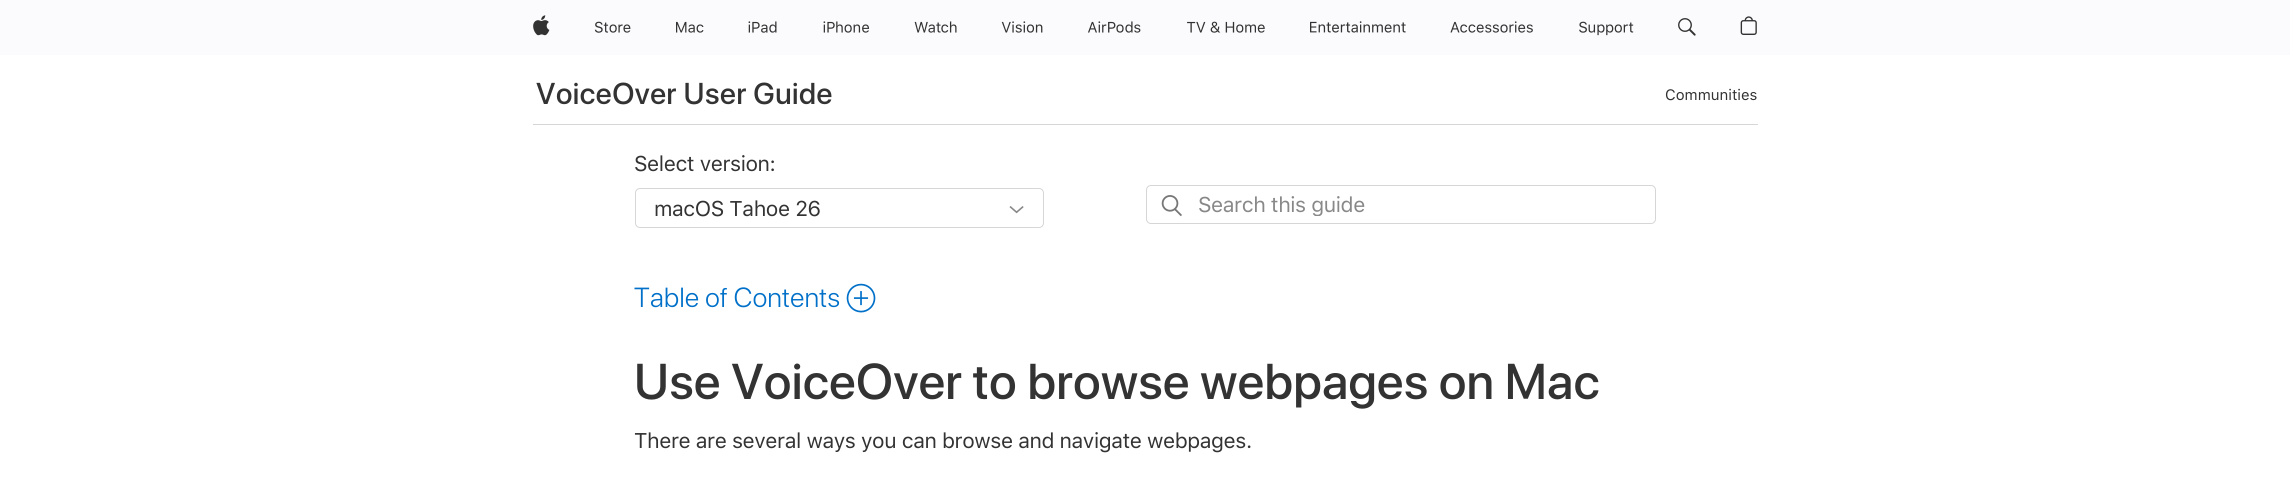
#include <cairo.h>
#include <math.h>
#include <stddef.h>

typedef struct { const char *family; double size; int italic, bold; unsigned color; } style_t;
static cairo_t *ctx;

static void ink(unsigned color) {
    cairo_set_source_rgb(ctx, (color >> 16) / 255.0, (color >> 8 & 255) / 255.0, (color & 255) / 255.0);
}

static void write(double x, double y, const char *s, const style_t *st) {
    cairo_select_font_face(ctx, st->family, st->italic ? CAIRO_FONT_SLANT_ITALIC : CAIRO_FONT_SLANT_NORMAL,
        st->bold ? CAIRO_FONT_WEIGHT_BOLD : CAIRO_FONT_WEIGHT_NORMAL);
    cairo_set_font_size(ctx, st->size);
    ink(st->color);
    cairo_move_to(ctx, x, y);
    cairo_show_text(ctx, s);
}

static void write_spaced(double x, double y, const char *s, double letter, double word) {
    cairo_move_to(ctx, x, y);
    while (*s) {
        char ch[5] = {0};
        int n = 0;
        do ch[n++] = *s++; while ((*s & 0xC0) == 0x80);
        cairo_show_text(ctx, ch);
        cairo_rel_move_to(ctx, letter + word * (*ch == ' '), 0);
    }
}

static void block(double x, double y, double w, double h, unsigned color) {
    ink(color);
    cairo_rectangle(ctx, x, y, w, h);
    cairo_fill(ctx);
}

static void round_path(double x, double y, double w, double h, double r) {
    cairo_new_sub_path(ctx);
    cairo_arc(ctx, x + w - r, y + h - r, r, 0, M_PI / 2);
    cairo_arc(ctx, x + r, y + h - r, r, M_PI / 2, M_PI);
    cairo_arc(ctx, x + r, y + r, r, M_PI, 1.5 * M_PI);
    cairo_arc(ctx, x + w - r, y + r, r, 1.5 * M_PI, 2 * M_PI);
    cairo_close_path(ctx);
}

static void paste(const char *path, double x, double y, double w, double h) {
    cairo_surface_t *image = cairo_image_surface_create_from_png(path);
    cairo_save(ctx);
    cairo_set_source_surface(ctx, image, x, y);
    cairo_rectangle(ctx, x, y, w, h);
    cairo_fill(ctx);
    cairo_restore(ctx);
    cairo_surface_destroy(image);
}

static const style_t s1 = {"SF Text", 15, 0, 0, 0x333333};

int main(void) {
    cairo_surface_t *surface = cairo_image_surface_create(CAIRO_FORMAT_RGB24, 2290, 490);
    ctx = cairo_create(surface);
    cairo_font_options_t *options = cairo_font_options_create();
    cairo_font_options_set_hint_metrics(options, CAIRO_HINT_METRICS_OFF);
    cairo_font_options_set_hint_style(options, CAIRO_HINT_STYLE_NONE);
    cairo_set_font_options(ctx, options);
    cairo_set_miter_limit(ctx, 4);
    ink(0xffffff);
    cairo_paint(ctx);
    block(0, 0, 2290, 55, 0xfbfbfd);
    paste("pic1.png", 533, 15, 17, 21);
    paste("pic2.png", 594, 21, 37, 12);
    paste("pic3.png", 676, 21, 28, 12);
    paste("pic4.png", 748, 21, 29, 12);
    paste("pic5.png", 823, 21, 47, 12);
    paste("pic6.png", 914, 21, 43, 12);
    paste("pic7.png", 1001, 21, 42, 12);
    paste("pic8.png", 1088, 21, 53, 12);
    paste("pic9.png", 1187, 21, 78, 12);
    paste("pic10.png", 1310, 21, 96, 12);
    paste("pic11.png", 1450, 21, 83, 12);
    paste("pic12.png", 1579, 21, 55, 15);
    paste("pic13.png", 1678, 18, 18, 18);
    paste("pic14.png", 1740, 16, 17, 19);
    cairo_select_font_face(ctx, "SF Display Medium", CAIRO_FONT_SLANT_NORMAL, CAIRO_FONT_WEIGHT_NORMAL);
    cairo_set_font_size(ctx, 30);
    ink(0x333333);
    write_spaced(536, 104, "VoiceOver User Guide", 0.5, 0);
    write(1665, 100, "Communities", &s1);
    block(533, 124, 1225, 1, 0xd6d6d6);
    cairo_set_font_size(ctx, 21.25);
    ink(0x333333);
    write_spaced(634, 171, "Select version:", -0.45, 0);
    round_path(635.5, 188.5, 408, 39, 4.5);
    ink(0xd6d6d6);
    cairo_set_line_width(ctx, 1);
    cairo_stroke(ctx);
    ink(0x333333);
    write_spaced(654, 216, "macOS Tahoe 26", -0.45, 0);
    paste("pic15.png", 1009, 206, 15, 8);
    round_path(1146.5, 185.5, 509, 38, 4.5);
    ink(0xd6d6d6);
    cairo_stroke(ctx);
    paste("pic16.png", 1161, 195, 21, 22);
    cairo_save(ctx);
    cairo_rectangle(ctx, 1199, 191, 412, 25);
    cairo_clip(ctx);
    ink(0x888888);
    write_spaced(1198, 212, "Search this guide", -0.45, 0);
    cairo_restore(ctx);
    cairo_select_font_face(ctx, "SF Display Light", CAIRO_FONT_SLANT_NORMAL, CAIRO_FONT_WEIGHT_NORMAL);
    cairo_set_font_size(ctx, 27.5);
    ink(0x0070c9);
    write_spaced(634, 307, "Table of Contents", 0.4, 0);
    paste("pic17.png", 846, 283, 30, 30);
    cairo_select_font_face(ctx, "SF Display Medium", CAIRO_FONT_SLANT_NORMAL, CAIRO_FONT_WEIGHT_NORMAL);
    cairo_set_font_size(ctx, 50);
    ink(0x333333);
    write_spaced(634, 399, "Use VoiceOver to browse webpages on Mac", 0.4, 0);
    cairo_select_font_face(ctx, "SF Text", CAIRO_FONT_SLANT_NORMAL, CAIRO_FONT_WEIGHT_NORMAL);
    cairo_set_font_size(ctx, 21.25);
    write_spaced(634, 448, "There are several ways you can browse and navigate webpages.", -0.45, 0);
    cairo_surface_write_to_png(surface, "screenshot.png");
    cairo_font_options_destroy(options);
    cairo_destroy(ctx);
    cairo_surface_destroy(surface);
    return 0;
}
